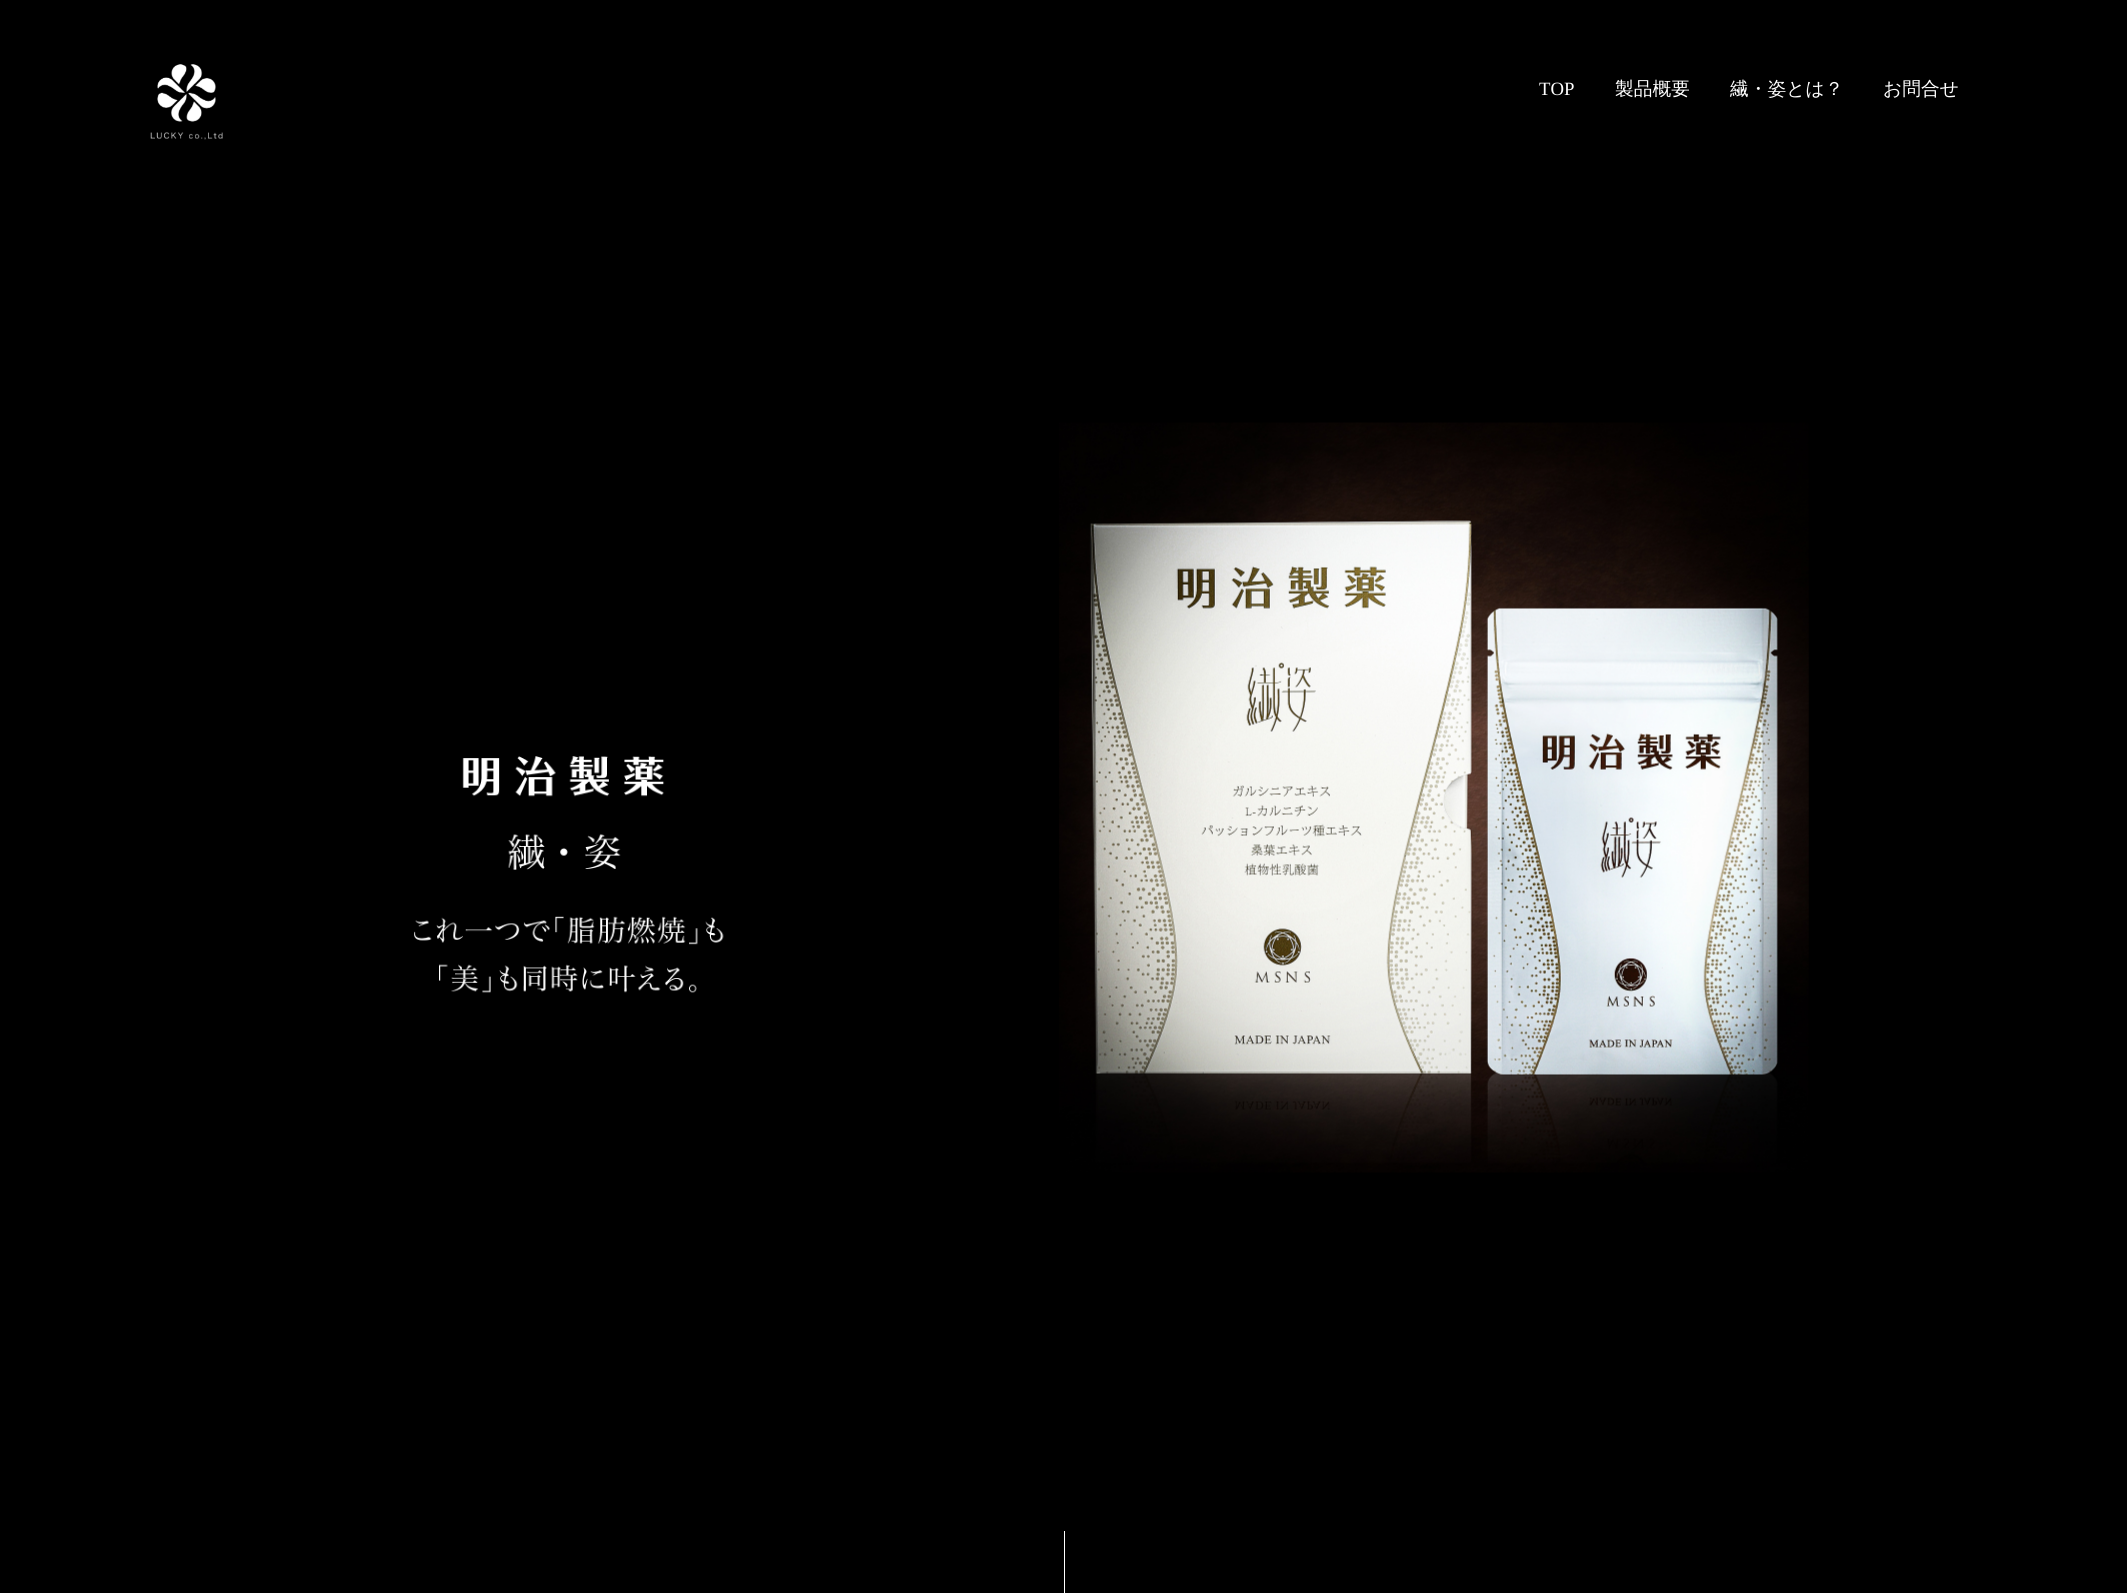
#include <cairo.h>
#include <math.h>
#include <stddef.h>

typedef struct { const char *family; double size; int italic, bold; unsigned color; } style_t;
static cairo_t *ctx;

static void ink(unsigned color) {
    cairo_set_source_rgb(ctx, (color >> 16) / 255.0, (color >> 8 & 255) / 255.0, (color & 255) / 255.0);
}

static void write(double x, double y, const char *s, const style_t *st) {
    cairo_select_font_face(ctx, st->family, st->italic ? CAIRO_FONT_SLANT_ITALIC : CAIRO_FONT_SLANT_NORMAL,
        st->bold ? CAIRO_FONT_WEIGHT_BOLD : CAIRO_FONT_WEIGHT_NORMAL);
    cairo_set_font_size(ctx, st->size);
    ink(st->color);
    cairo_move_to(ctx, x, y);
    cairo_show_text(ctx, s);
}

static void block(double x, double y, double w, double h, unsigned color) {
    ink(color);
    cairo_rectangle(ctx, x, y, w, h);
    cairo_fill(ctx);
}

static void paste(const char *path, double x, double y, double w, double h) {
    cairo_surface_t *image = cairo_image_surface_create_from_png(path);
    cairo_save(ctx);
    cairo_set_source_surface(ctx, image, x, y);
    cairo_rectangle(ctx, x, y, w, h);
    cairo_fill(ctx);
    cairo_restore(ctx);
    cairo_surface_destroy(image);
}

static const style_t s1 = {"Liberation Serif", 18.75, 0, 0, 0xffffff};
static const style_t s2 = {"WenQuanYi Zen Hei Medium", 18.75, 0, 0, 0xffffff};

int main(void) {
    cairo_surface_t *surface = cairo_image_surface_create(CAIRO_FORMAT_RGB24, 2127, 1593);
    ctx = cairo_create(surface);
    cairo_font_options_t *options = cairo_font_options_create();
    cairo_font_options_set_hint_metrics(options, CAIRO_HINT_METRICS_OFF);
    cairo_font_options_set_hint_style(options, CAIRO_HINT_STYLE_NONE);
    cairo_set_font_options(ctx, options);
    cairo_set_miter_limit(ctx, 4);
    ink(0x000000);
    cairo_paint(ctx);
    paste("pic1.png", 150, 64, 73, 76);
    write(1539, 95, "TOP", &s1);
    write(1615, 95, "製品概要", &s2);
    write(1730, 95, "繊・姿とは？", &s2);
    write(1883, 95, "お問合せ", &s2);
    paste("pic2.png", 414, 756, 310, 237);
    paste("pic3.png", 1059, 422, 750, 751);
    block(1064, 1531, 1, 62, 0xffffff);
    cairo_surface_write_to_png(surface, "screenshot.png");
    cairo_font_options_destroy(options);
    cairo_destroy(ctx);
    cairo_surface_destroy(surface);
    return 0;
}
